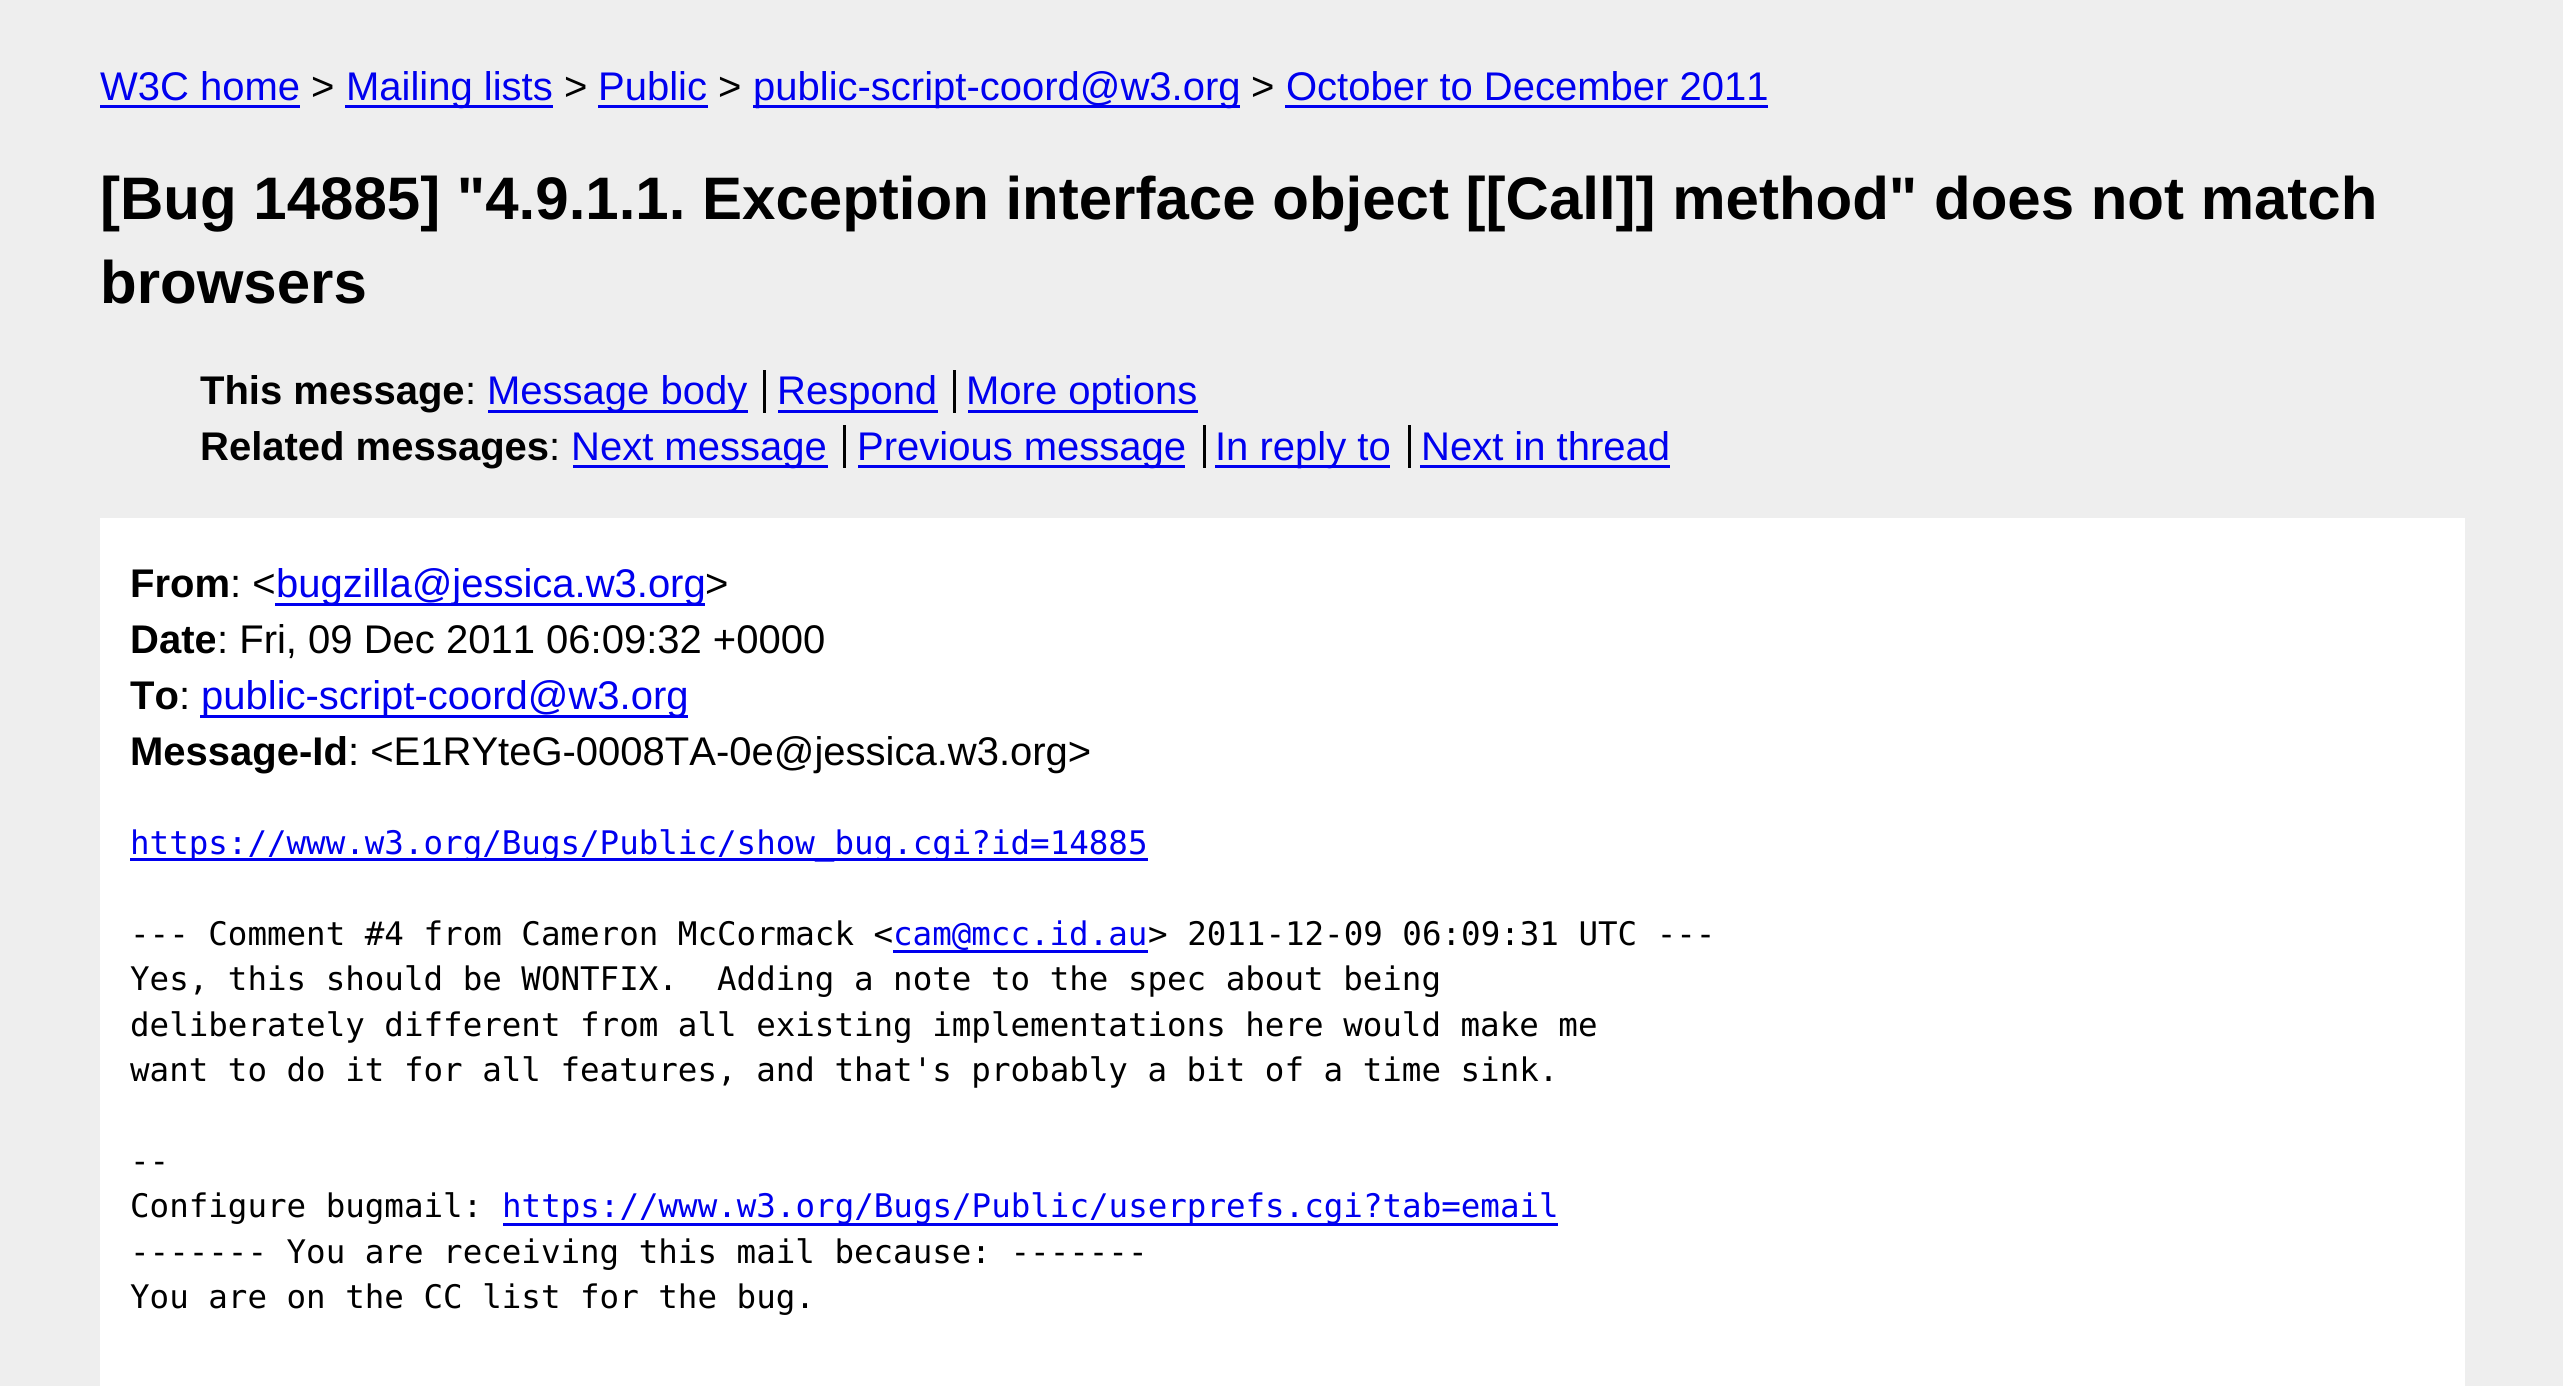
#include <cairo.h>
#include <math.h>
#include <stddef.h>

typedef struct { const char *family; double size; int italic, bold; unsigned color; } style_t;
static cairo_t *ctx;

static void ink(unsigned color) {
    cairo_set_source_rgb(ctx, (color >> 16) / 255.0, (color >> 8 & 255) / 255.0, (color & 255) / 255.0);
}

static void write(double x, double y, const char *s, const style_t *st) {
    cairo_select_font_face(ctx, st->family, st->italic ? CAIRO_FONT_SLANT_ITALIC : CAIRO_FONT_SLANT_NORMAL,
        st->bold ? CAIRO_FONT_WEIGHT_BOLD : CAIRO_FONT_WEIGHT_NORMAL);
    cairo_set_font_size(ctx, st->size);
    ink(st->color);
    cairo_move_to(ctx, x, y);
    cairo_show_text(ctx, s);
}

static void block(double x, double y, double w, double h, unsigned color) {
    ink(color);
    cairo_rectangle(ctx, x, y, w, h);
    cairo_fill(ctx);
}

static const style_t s1 = {"Liberation Sans", 40, 0, 0, 0x0000ee};
static const style_t s2 = {"Liberation Sans", 40, 0, 0, 0x000000};
static const style_t s3 = {"Liberation Sans", 60, 0, 1, 0x000000};
static const style_t s4 = {"Liberation Sans", 40, 0, 1, 0x000000};
static const style_t s5 = {"DejaVu Sans Mono", 32.5, 0, 0, 0x0000ee};
static const style_t s6 = {"DejaVu Sans Mono", 32.5, 0, 0, 0x000000};

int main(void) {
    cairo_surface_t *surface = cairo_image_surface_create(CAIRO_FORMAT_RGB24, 2563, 1386);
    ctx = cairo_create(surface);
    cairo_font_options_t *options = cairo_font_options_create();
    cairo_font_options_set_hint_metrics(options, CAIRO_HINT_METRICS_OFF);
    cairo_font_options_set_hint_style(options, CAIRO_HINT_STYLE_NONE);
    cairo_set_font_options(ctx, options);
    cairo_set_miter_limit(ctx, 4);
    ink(0xeeeeee);
    cairo_paint(ctx);
    write(100, 100, "W3C home", &s1);
    block(100, 105, 200, 3, 0x0000ee);
    write(311, 100, ">", &s2);
    block(345, 105, 208, 3, 0x0000ee);
    write(346, 100, "Mailing lists", &s1);
    write(564, 100, ">", &s2);
    write(598, 100, "Public", &s1);
    block(598, 105, 110, 3, 0x0000ee);
    write(718, 100, ">", &s2);
    block(753, 105, 487, 3, 0x0000ee);
    write(753, 100, "public-script-coord@w3.org", &s1);
    write(1251, 100, ">", &s2);
    write(1286, 100, "October to December 2011", &s1);
    block(1285, 105, 483, 3, 0x0000ee);
    write(100, 219, "[Bug 14885] \"4.9.1.1. Exception interface object [[Call]] method\" does not match", &s3);
    write(100, 303, "browsers", &s3);
    write(200, 404, "This message", &s4);
    write(465, 404, ":", &s2);
    block(488, 410, 260, 3, 0x0000ee);
    write(487, 404, "Message body", &s1);
    block(778, 410, 160, 3, 0x0000ee);
    write(777, 404, "Respond", &s1);
    block(763, 370, 3, 43, 0x000000);
    block(968, 410, 230, 3, 0x0000ee);
    write(966, 404, "More options", &s1);
    block(953, 370, 3, 43, 0x000000);
    write(200, 460, "Related messages", &s4);
    write(549, 460, ":", &s2);
    block(573, 465, 255, 3, 0x0000ee);
    write(571, 460, "Next message", &s1);
    block(858, 465, 327, 3, 0x0000ee);
    write(857, 460, "Previous message", &s1);
    block(843, 425, 3, 43, 0x000000);
    block(1215, 465, 175, 3, 0x0000ee);
    write(1215, 460, "In reply to", &s1);
    block(1203, 425, 3, 43, 0x000000);
    write(1421, 460, "Next in thread", &s1);
    block(1408, 425, 3, 43, 0x000000);
    block(1420, 465, 250, 3, 0x0000ee);
    block(100, 518, 2365, 868, 0xffffff);
    write(130, 597, "From", &s4);
    write(230, 597, ": <", &s2);
    block(275, 603, 430, 3, 0x0000ee);
    write(276, 597, "bugzilla@jessica.w3.org", &s1);
    write(705, 597, ">", &s2);
    write(130, 653, "Date", &s4);
    write(217, 653, ": Fri, 09 Dec 2011 06:09:32 +0000", &s2);
    write(130, 709, "To", &s4);
    write(179, 709, ":", &s2);
    block(200, 715, 488, 3, 0x0000ee);
    write(201, 709, "public-script-coord@w3.org", &s1);
    write(130, 765, "Message-Id", &s4);
    write(348, 765, ": <E1RYteG-0008TA-0e@jessica.w3.org>", &s2);
    block(130, 858, 1018, 3, 0x0000ee);
    write(130, 854, "https://www.w3.org/Bugs/Public/show_bug.cgi?id=14885", &s5);
    write(130, 945, "--- Comment #4 from Cameron McCormack <", &s6);
    block(893, 950, 255, 3, 0x0000ee);
    write(893, 945, "cam@mcc.id.au", &s5);
    write(1148, 945, "> 2011-12-09 06:09:31 UTC ---", &s6);
    write(130, 990, "Yes, this should be WONTFIX.  Adding a note to the spec about being", &s6);
    write(130, 1036, "deliberately different from all existing implementations here would make me", &s6);
    write(130, 1081, "want to do it for all features, and that's probably a bit of a time sink.", &s6);
    write(130, 1172, "--", &s6);
    write(130, 1217, "Configure bugmail:", &s6);
    block(503, 1223, 1055, 3, 0x0000ee);
    write(502, 1217, "https://www.w3.org/Bugs/Public/userprefs.cgi?tab=email", &s5);
    write(130, 1263, "------- You are receiving this mail because: -------", &s6);
    write(130, 1308, "You are on the CC list for the bug.", &s6);
    cairo_surface_write_to_png(surface, "screenshot.png");
    cairo_font_options_destroy(options);
    cairo_destroy(ctx);
    cairo_surface_destroy(surface);
    return 0;
}
